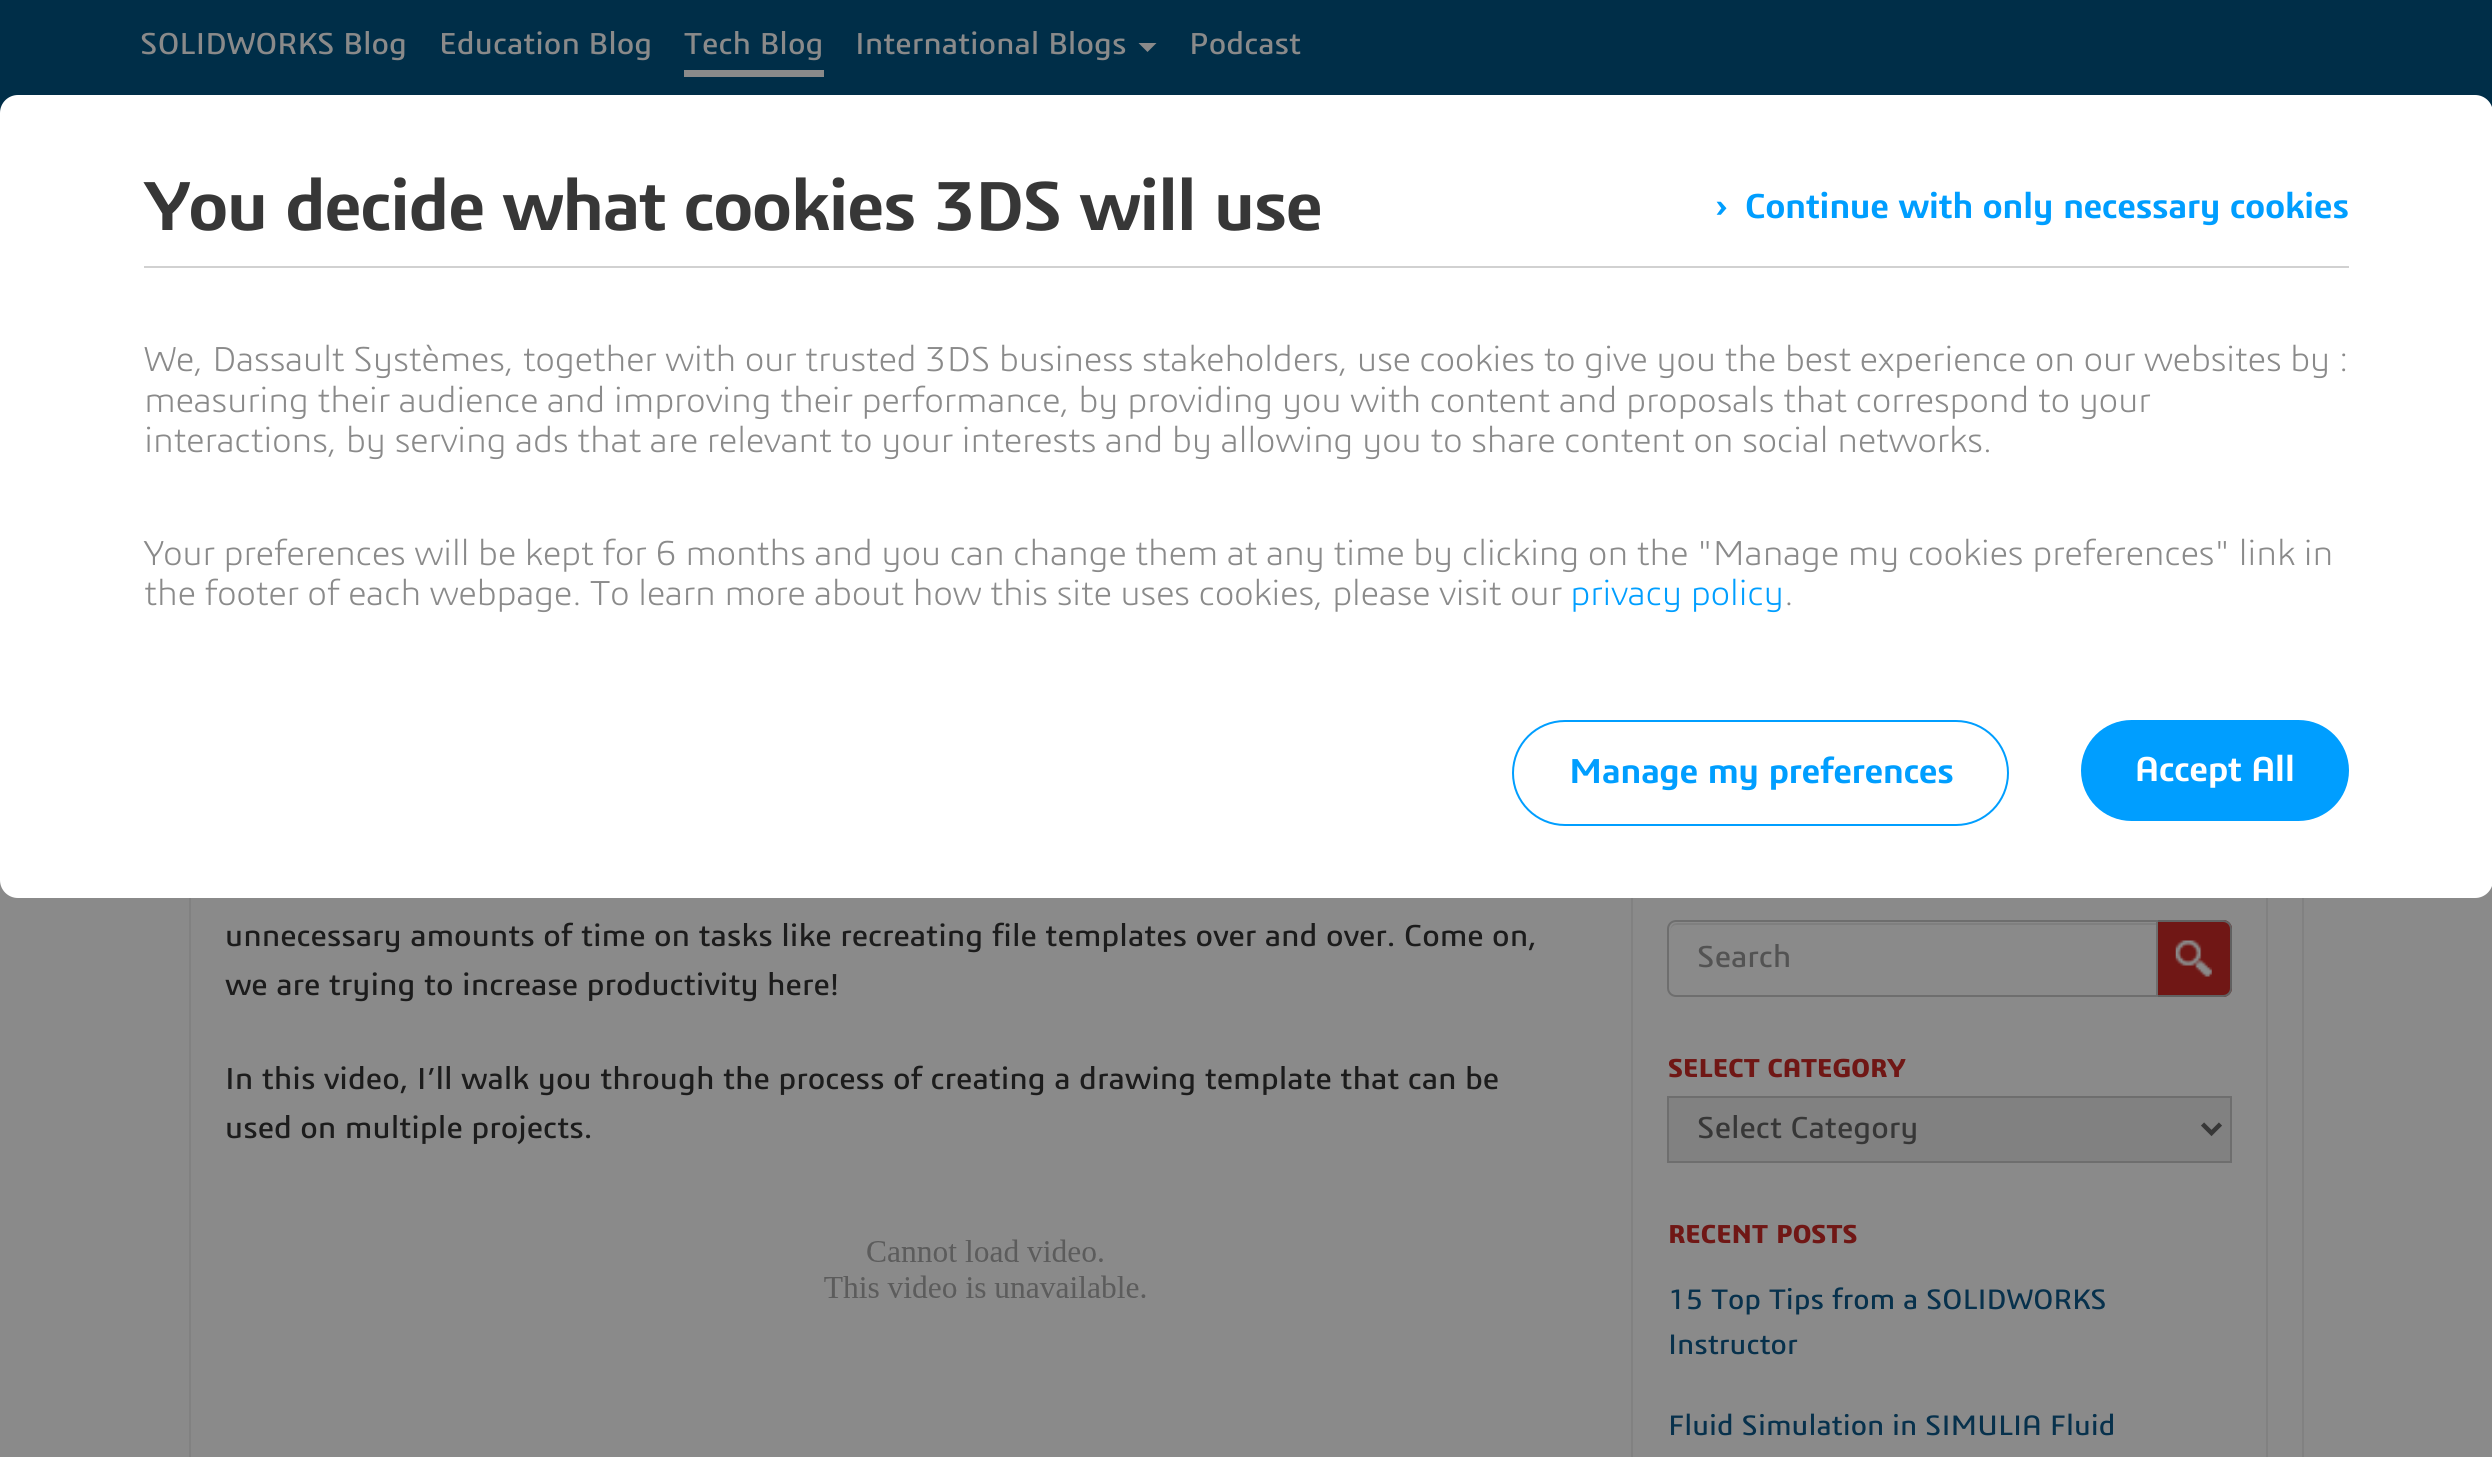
#include <cairo.h>
#include <math.h>
#include <stddef.h>

typedef struct { const char *family; double size; int italic, bold; unsigned color; } style_t;
static cairo_t *ctx;

static void ink(unsigned color) {
    cairo_set_source_rgb(ctx, (color >> 16) / 255.0, (color >> 8 & 255) / 255.0, (color & 255) / 255.0);
}

static void write(double x, double y, const char *s, const style_t *st) {
    cairo_select_font_face(ctx, st->family, st->italic ? CAIRO_FONT_SLANT_ITALIC : CAIRO_FONT_SLANT_NORMAL,
        st->bold ? CAIRO_FONT_WEIGHT_BOLD : CAIRO_FONT_WEIGHT_NORMAL);
    cairo_set_font_size(ctx, st->size);
    ink(st->color);
    cairo_move_to(ctx, x, y);
    cairo_show_text(ctx, s);
}

static void write_spaced(double x, double y, const char *s, double letter, double word) {
    cairo_move_to(ctx, x, y);
    while (*s) {
        char ch[5] = {0};
        int n = 0;
        do ch[n++] = *s++; while ((*s & 0xC0) == 0x80);
        cairo_show_text(ctx, ch);
        cairo_rel_move_to(ctx, letter + word * (*ch == ' '), 0);
    }
}

static void block(double x, double y, double w, double h, unsigned color) {
    ink(color);
    cairo_rectangle(ctx, x, y, w, h);
    cairo_fill(ctx);
}

static void round_path(double x, double y, double w, double h, double r) {
    cairo_new_sub_path(ctx);
    cairo_arc(ctx, x + w - r, y + h - r, r, 0, M_PI / 2);
    cairo_arc(ctx, x + r, y + h - r, r, M_PI / 2, M_PI);
    cairo_arc(ctx, x + r, y + r, r, M_PI, 1.5 * M_PI);
    cairo_arc(ctx, x + w - r, y + r, r, 1.5 * M_PI, 2 * M_PI);
    cairo_close_path(ctx);
}

static void paste(const char *path, double x, double y, double w, double h) {
    cairo_surface_t *image = cairo_image_surface_create_from_png(path);
    cairo_save(ctx);
    cairo_set_source_surface(ctx, image, x, y);
    cairo_rectangle(ctx, x, y, w, h);
    cairo_fill(ctx);
    cairo_restore(ctx);
    cairo_surface_destroy(image);
}

static const style_t s1 = {"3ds", 31.5, 0, 0, 0x8a8a8a};
static const style_t s2 = {"3ds", 31.5, 0, 0, 0x1c1c1c};
static const style_t s3 = {"3ds", 31.5, 0, 0, 0x535353};
static const style_t s4 = {"3ds", 27, 0, 1, 0x701715};
static const style_t s5 = {"3ds", 31.5, 0, 0, 0x373737};
static const style_t s6 = {"3ds", 29.25, 0, 0, 0x07314c};

int main(void) {
    cairo_surface_t *surface = cairo_image_surface_create(CAIRO_FORMAT_RGB24, 2492, 1457);
    ctx = cairo_create(surface);
    cairo_font_options_t *options = cairo_font_options_create();
    cairo_font_options_set_hint_metrics(options, CAIRO_HINT_METRICS_OFF);
    cairo_font_options_set_hint_style(options, CAIRO_HINT_STYLE_NONE);
    cairo_set_font_options(ctx, options);
    cairo_set_miter_limit(ctx, 4);
    ink(0x8a8a8a);
    cairo_paint(ctx);
    block(0, 0, 2492, 113, 0x002e48);
    write(140, 54, "SOLIDWORKS Blog", &s1);
    write(439, 54, "Education Blog", &s1);
    block(684, 70, 140, 7, 0x8a8a8a);
    write(684, 54, "Tech Blog", &s1);
    write(855, 54, "International Blogs", &s1);
    cairo_new_path(ctx);
    cairo_move_to(ctx, 1138.5, 43);
    cairo_line_to(ctx, 1156.5, 43);
    cairo_line_to(ctx, 1147.5, 52);
    cairo_close_path(ctx);
    cairo_fill(ctx);
    write(1189, 54, "Podcast", &s1);
    cairo_rectangle(ctx, 1632, 361, 635, 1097);
    ink(0x818181);
    cairo_stroke(ctx);
    ink(0xffffff);
    cairo_new_path(ctx);
    cairo_move_to(ctx, 18, 95);
    cairo_line_to(ctx, 2475, 95);
    cairo_curve_to(ctx, 2485, 95, 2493, 103, 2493, 113);
    cairo_line_to(ctx, 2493, 686);
    cairo_line_to(ctx, 0, 686);
    cairo_line_to(ctx, 0, 113);
    cairo_curve_to(ctx, 0, 103, 8, 95, 18, 95);
    cairo_close_path(ctx);
    cairo_fill(ctx);
    block(144, 266, 2205, 2, 0xd1d1d1);
    cairo_select_font_face(ctx, "3ds SemiBold", CAIRO_FONT_SLANT_NORMAL, CAIRO_FONT_WEIGHT_NORMAL);
    cairo_set_font_size(ctx, 72);
    ink(0x373737);
    write_spaced(144, 230, "You decide what cookies 3DS will use", -1.8, 0);
    cairo_set_font_size(ctx, 36);
    ink(0x009eff);
    write_spaced(1715, 218, "›", -0.45, 0);
    write_spaced(1745, 218, "Continue with only necessary cookies", -0.45, 0);
    cairo_select_font_face(ctx, "3ds Light", CAIRO_FONT_SLANT_NORMAL, CAIRO_FONT_WEIGHT_NORMAL);
    ink(0x8a8a8a);
    write_spaced(144, 371, "We, Dassault Systèmes, together with our trusted 3DS business stakeholders, use cookies to give you the best experience on our websites by :", -0.45, 0);
    write_spaced(144, 412, "measuring their audience and improving their performance, by providing you with content and proposals that correspond to your", -0.45, 0);
    write_spaced(144, 452, "interactions, by serving ads that are relevant to your interests and by allowing you to share content on social networks.", -0.45, 0);
    write_spaced(144, 565, "Your preferences will be kept for 6 months and you can change them at any time by clicking on the \"Manage my cookies preferences\" link in", -0.45, 0);
    write_spaced(144, 605, "the footer of each webpage. To learn more about how this site uses cookies, please visit our", -0.45, 0);
    ink(0x009eff);
    write_spaced(1570, 605, "privacy policy", -0.45, 0);
    ink(0x8a8a8a);
    write_spaced(1784, 605, ".", -0.45, 0);
    ink(0xffffff);
    cairo_new_path(ctx);
    cairo_move_to(ctx, 0, 686);
    cairo_line_to(ctx, 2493, 686);
    cairo_line_to(ctx, 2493, 880);
    cairo_curve_to(ctx, 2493, 890, 2485, 898, 2475, 898);
    cairo_line_to(ctx, 18, 898);
    cairo_curve_to(ctx, 8, 898, 0, 890, 0, 880);
    cairo_close_path(ctx);
    cairo_fill(ctx);
    round_path(1513, 721, 495, 104, 52);
    ink(0x009eff);
    cairo_stroke(ctx);
    cairo_select_font_face(ctx, "3ds SemiBold", CAIRO_FONT_SLANT_NORMAL, CAIRO_FONT_WEIGHT_NORMAL);
    write_spaced(1569, 783, "Manage my preferences", -0.45, 0);
    round_path(2081, 720, 268, 101, 50.5);
    cairo_fill(ctx);
    ink(0xffffff);
    write_spaced(2135, 781, "Accept All", -0.45, 0);
    block(2302, 898, 2, 559, 0x818181);
    block(189, 898, 2, 559, 0x818181);
    write(225, 946, "unnecessary amounts of time on tasks like recreating file templates over and over. Come on,", &s2);
    write(225, 995, "we are trying to increase productivity here!", &s2);
    write(225, 1089, "In this video, I’ll walk you through the process of creating a drawing template that can be", &s2);
    write(225, 1138, "used on multiple projects.", &s2);
    paste("pic1.png", 824, 1239, 322, 59);
    ink(0x701715);
    cairo_new_path(ctx);
    cairo_move_to(ctx, 2156, 920);
    cairo_line_to(ctx, 2223, 920);
    cairo_curve_to(ctx, 2228, 920, 2232, 924, 2232, 929);
    cairo_line_to(ctx, 2232, 988);
    cairo_curve_to(ctx, 2232, 993, 2228, 997, 2223, 997);
    cairo_line_to(ctx, 2156, 997);
    cairo_close_path(ctx);
    cairo_fill(ctx);
    paste("pic2.png", 2175, 940, 37, 37);
    cairo_new_path(ctx);
    cairo_move_to(ctx, 2157, 921);
    cairo_line_to(ctx, 2223, 921);
    cairo_curve_to(ctx, 2227.5, 921, 2231, 924.5, 2231, 929);
    cairo_line_to(ctx, 2231, 988);
    cairo_curve_to(ctx, 2231, 992.5, 2227.5, 996, 2223, 996);
    cairo_line_to(ctx, 2157, 996);
    cairo_close_path(ctx);
    ink(0x616161);
    cairo_stroke(ctx);
    ink(0x8a8a8a);
    cairo_new_path(ctx);
    cairo_move_to(ctx, 1676, 920);
    cairo_line_to(ctx, 2158, 920);
    cairo_line_to(ctx, 2158, 997);
    cairo_line_to(ctx, 1676, 997);
    cairo_curve_to(ctx, 1671, 997, 1667, 993, 1667, 988);
    cairo_line_to(ctx, 1667, 929);
    cairo_curve_to(ctx, 1667, 924, 1671, 920, 1676, 920);
    cairo_close_path(ctx);
    cairo_fill(ctx);
    ink(0x7f7f7f);
    cairo_new_path(ctx);
    cairo_move_to(ctx, 1676, 925);
    cairo_line_to(ctx, 2156, 925);
    cairo_line_to(ctx, 2156, 923);
    cairo_line_to(ctx, 1677, 923);
    cairo_curve_to(ctx, 1672, 923, 1670, 928, 1670, 932);
    cairo_curve_to(ctx, 1670, 928, 1673, 925, 1676, 925);
    cairo_close_path(ctx);
    cairo_fill(ctx);
    cairo_new_path(ctx);
    cairo_move_to(ctx, 1676, 921);
    cairo_line_to(ctx, 2157, 921);
    cairo_line_to(ctx, 2157, 996);
    cairo_line_to(ctx, 1676, 996);
    cairo_curve_to(ctx, 1671.5, 996, 1668, 992.5, 1668, 988);
    cairo_line_to(ctx, 1668, 929);
    cairo_curve_to(ctx, 1668, 924.5, 1671.5, 921, 1676, 921);
    cairo_close_path(ctx);
    ink(0x6e6e6e);
    cairo_stroke(ctx);
    write(1697, 967, "Search", &s3);
    write(1668, 1077, "SELECT CATEGORY", &s4);
    ink(0x818181);
    cairo_rectangle(ctx, 1668, 1097, 563, 65);
    cairo_fill_preserve(ctx);
    ink(0x6e6e6e);
    cairo_stroke(ctx);
    cairo_new_path(ctx);
    cairo_move_to(ctx, 2202.5, 1124);
    cairo_line_to(ctx, 2211.5, 1133);
    cairo_line_to(ctx, 2220.5, 1124);
    ink(0x373737);
    cairo_set_line_width(ctx, 4.5);
    cairo_stroke(ctx);
    write(1697, 1138, "Select Category", &s5);
    write(1668, 1243, "RECENT POSTS", &s4);
    write(1668, 1309, "15 Top Tips from a SOLIDWORKS", &s6);
    write(1668, 1354, "Instructor", &s6);
    write(1668, 1435, "Fluid Simulation in SIMULIA Fluid", &s6);
    cairo_surface_write_to_png(surface, "screenshot.png");
    cairo_font_options_destroy(options);
    cairo_destroy(ctx);
    cairo_surface_destroy(surface);
    return 0;
}
